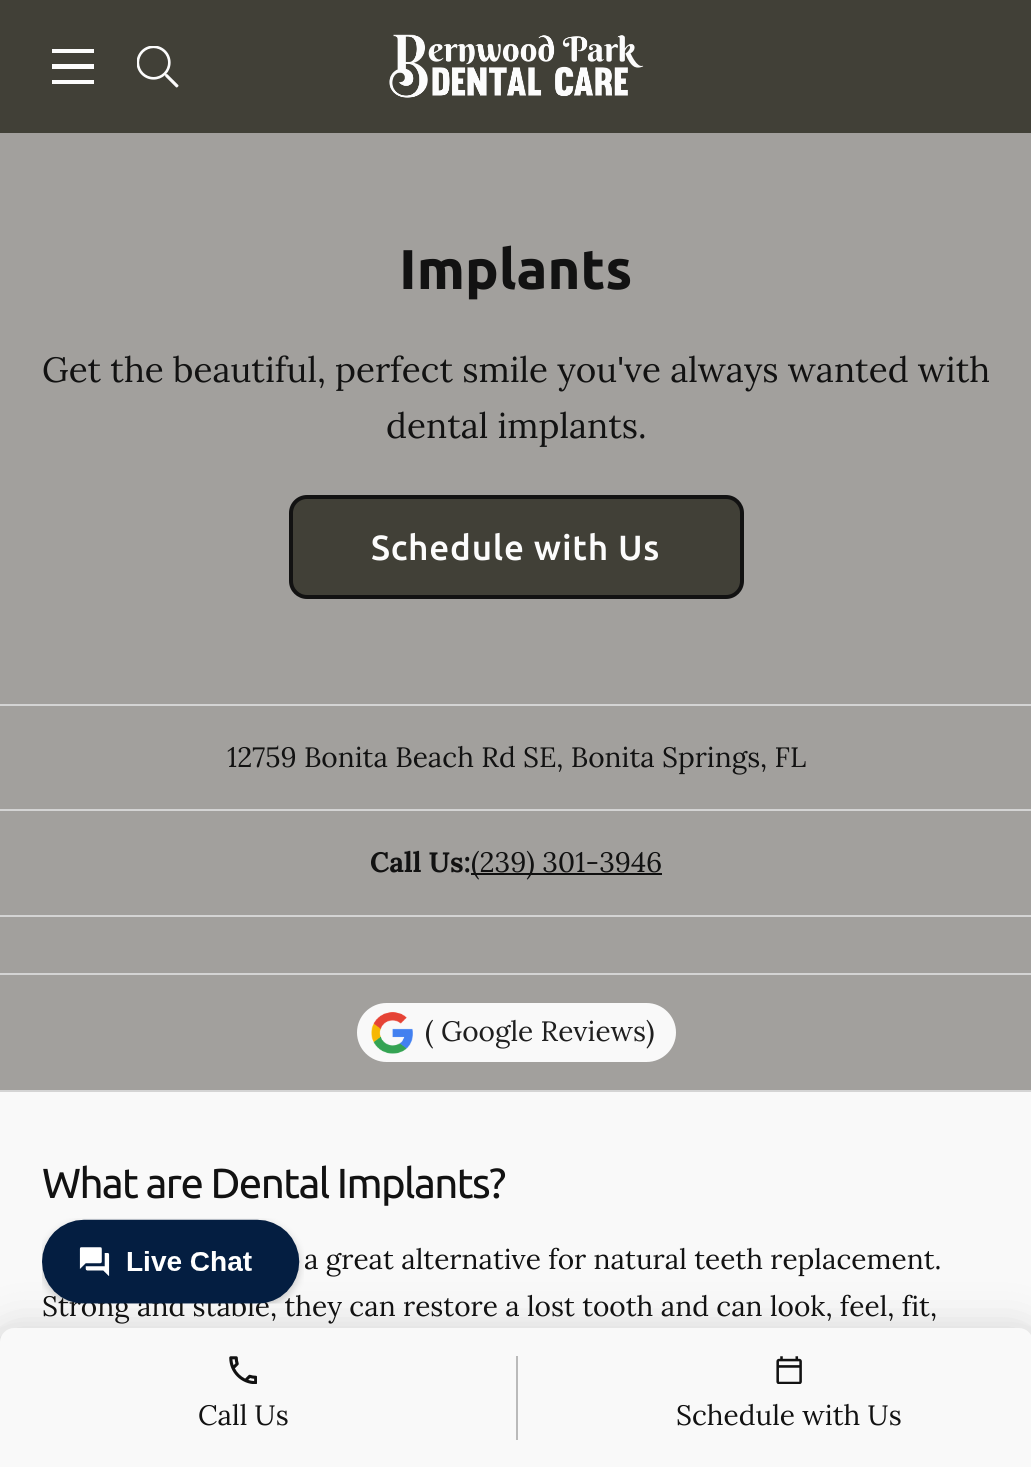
#include <cairo.h>
#include <math.h>
#include <stddef.h>

typedef struct { const char *family; double size; int italic, bold; unsigned color; } style_t;
static cairo_t *ctx;

static void ink(unsigned color) {
    cairo_set_source_rgb(ctx, (color >> 16) / 255.0, (color >> 8 & 255) / 255.0, (color & 255) / 255.0);
}

static void write(double x, double y, const char *s, const style_t *st) {
    cairo_select_font_face(ctx, st->family, st->italic ? CAIRO_FONT_SLANT_ITALIC : CAIRO_FONT_SLANT_NORMAL,
        st->bold ? CAIRO_FONT_WEIGHT_BOLD : CAIRO_FONT_WEIGHT_NORMAL);
    cairo_set_font_size(ctx, st->size);
    ink(st->color);
    cairo_move_to(ctx, x, y);
    cairo_show_text(ctx, s);
}

static void write_spaced(double x, double y, const char *s, double letter, double word) {
    cairo_move_to(ctx, x, y);
    while (*s) {
        char ch[5] = {0};
        int n = 0;
        do ch[n++] = *s++; while ((*s & 0xC0) == 0x80);
        cairo_show_text(ctx, ch);
        cairo_rel_move_to(ctx, letter + word * (*ch == ' '), 0);
    }
}

static void block(double x, double y, double w, double h, unsigned color) {
    ink(color);
    cairo_rectangle(ctx, x, y, w, h);
    cairo_fill(ctx);
}

static void round_path(double x, double y, double w, double h, double r) {
    cairo_new_sub_path(ctx);
    cairo_arc(ctx, x + w - r, y + h - r, r, 0, M_PI / 2);
    cairo_arc(ctx, x + r, y + h - r, r, M_PI / 2, M_PI);
    cairo_arc(ctx, x + r, y + r, r, M_PI, 1.5 * M_PI);
    cairo_arc(ctx, x + w - r, y + r, r, 1.5 * M_PI, 2 * M_PI);
    cairo_close_path(ctx);
}

static void blur_box(double x, double y, double w, double h, double r, double blur, double alpha) {
    cairo_push_group_with_content(ctx, CAIRO_CONTENT_ALPHA);
    cairo_set_operator(ctx, CAIRO_OPERATOR_SOURCE);
    for (int i = 15; i >= -15 && fmin(w, h) + blur * i / 3 > 0; i -= 2) {
        double e = blur * i / 6;
        cairo_set_source_rgba(ctx, 0, 0, 0, alpha * erfc((i - 1) / 8.5) / 2);
        round_path(x - e, y - e, w + 2 * e, h + 2 * e, fmax(0, fmin(r + e + blur * .6, fmin(w, h) / 2 + e)));
        cairo_fill(ctx);
    }
    cairo_pattern_t *soft = cairo_pop_group(ctx);
    cairo_mask(ctx, soft);
    cairo_pattern_destroy(soft);
}

static void paste(const char *path, double x, double y, double w, double h) {
    cairo_surface_t *image = cairo_image_surface_create_from_png(path);
    cairo_save(ctx);
    cairo_set_source_surface(ctx, image, x, y);
    cairo_rectangle(ctx, x, y, w, h);
    cairo_fill(ctx);
    cairo_restore(ctx);
    cairo_surface_destroy(image);
}

static const style_t s1 = {"Ubuntu", 56, 0, 1, 0x121212};
static const style_t s2 = {"Lora", 35, 0, 0, 0x121212};
static const style_t s3 = {"Lora", 28, 0, 0, 0x121212};
static const style_t s4 = {"Lora", 28, 0, 1, 0x121212};
static const style_t s5 = {"Lora", 28, 0, 0, 0x1f1f1f};

int main(void) {
    cairo_surface_t *surface = cairo_image_surface_create(CAIRO_FORMAT_RGB24, 1031, 1467);
    ctx = cairo_create(surface);
    cairo_font_options_t *options = cairo_font_options_create();
    cairo_font_options_set_hint_metrics(options, CAIRO_HINT_METRICS_OFF);
    cairo_font_options_set_hint_style(options, CAIRO_HINT_STYLE_NONE);
    cairo_set_font_options(ctx, options);
    cairo_set_miter_limit(ctx, 4);
    ink(0xf9f9f9);
    cairo_paint(ctx);
    block(0, 0, 1031, 133, 0x414037);
    block(52, 49, 42, 4, 0xfcfcfc);
    block(52, 64, 42, 5, 0xfcfcfc);
    block(52, 80, 42, 4, 0xfcfcfc);
    paste("pic1.png", 137, 46, 42, 42);
    paste("pic2.png", 389, 34, 255, 64);
    block(0, 133, 1031, 571, 0xa2a09d);
    write(399, 289, "Implants", &s1);
    write(42, 382, "Get the beautiful, perfect smile you've always wanted with", &s2);
    write(386, 438, "dental implants.", &s2);
    ink(0x414037);
    round_path(291, 497, 451, 100, 16);
    cairo_fill_preserve(ctx);
    ink(0x121212);
    cairo_set_line_width(ctx, 4);
    cairo_stroke(ctx);
    cairo_select_font_face(ctx, "Ubuntu Medium", CAIRO_FONT_SLANT_NORMAL, CAIRO_FONT_WEIGHT_NORMAL);
    ink(0xfcfcfc);
    write_spaced(371, 560, "Schedule with Us", 0.8, 0);
    block(0, 706, 1031, 384, 0xa2a09d);
    block(0, 704, 1031, 2, 0xd4d4d4);
    block(0, 1090, 1031, 2, 0xd4d4d4);
    write(227, 767, "12759 Bonita Beach Rd SE, Bonita Springs, FL", &s3);
    block(0, 809, 1031, 2, 0xd4d4d4);
    write(370, 872, "Call Us:", &s4);
    block(471, 873, 191, 2, 0x0f0f0f);
    write(471, 872, "(239) 301-3946", &s3);
    block(0, 915, 1031, 2, 0xd4d4d4);
    block(0, 973, 1031, 2, 0xd4d4d4);
    ink(0xf9f9f9);
    round_path(357, 1003, 319, 59, 29.5);
    cairo_fill(ctx);
    paste("pic3.png", 371, 1012, 42, 42);
    write(425, 1041, "( Google Reviews)", &s5);
    cairo_select_font_face(ctx, "Ubuntu", CAIRO_FONT_SLANT_NORMAL, CAIRO_FONT_WEIGHT_NORMAL);
    cairo_set_font_size(ctx, 42);
    ink(0x121212);
    write_spaced(42, 1198, "What are Dental Implants?", -1.6, 0);
    write(304, 1269, "a great alternative for natural teeth replacement.", &s3);
    write(42, 1316, "Strong and stable, they can restore a lost tooth and can look, feel, fit,", &s3);
    ink(0x000000);
    blur_box(-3, 1353, 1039, 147, 18, 21, 0.24);
    blur_box(-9, 1330, 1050, 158, 23, 26, 0.12);
    ink(0xf9f9f9);
    cairo_new_path(ctx);
    cairo_move_to(ctx, 14, 1328);
    cairo_line_to(ctx, 1019, 1328);
    cairo_curve_to(ctx, 1026.5, 1328, 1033, 1334.5, 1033, 1342);
    cairo_line_to(ctx, 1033, 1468);
    cairo_line_to(ctx, 0, 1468);
    cairo_line_to(ctx, 0, 1342);
    cairo_curve_to(ctx, 0, 1334.5, 6.5, 1328, 14, 1328);
    cairo_close_path(ctx);
    cairo_fill(ctx);
    paste("pic4.png", 229, 1356, 28, 28);
    write(198, 1425, "Call Us", &s3);
    block(516, 1356, 2, 84, 0xbababa);
    paste("pic5.png", 776, 1356, 26, 28);
    write(676, 1425, "Schedule with Us", &s3);
    paste("pic6.png", 42, 1218, 262, 86);
    cairo_surface_write_to_png(surface, "screenshot.png");
    cairo_font_options_destroy(options);
    cairo_destroy(ctx);
    cairo_surface_destroy(surface);
    return 0;
}
